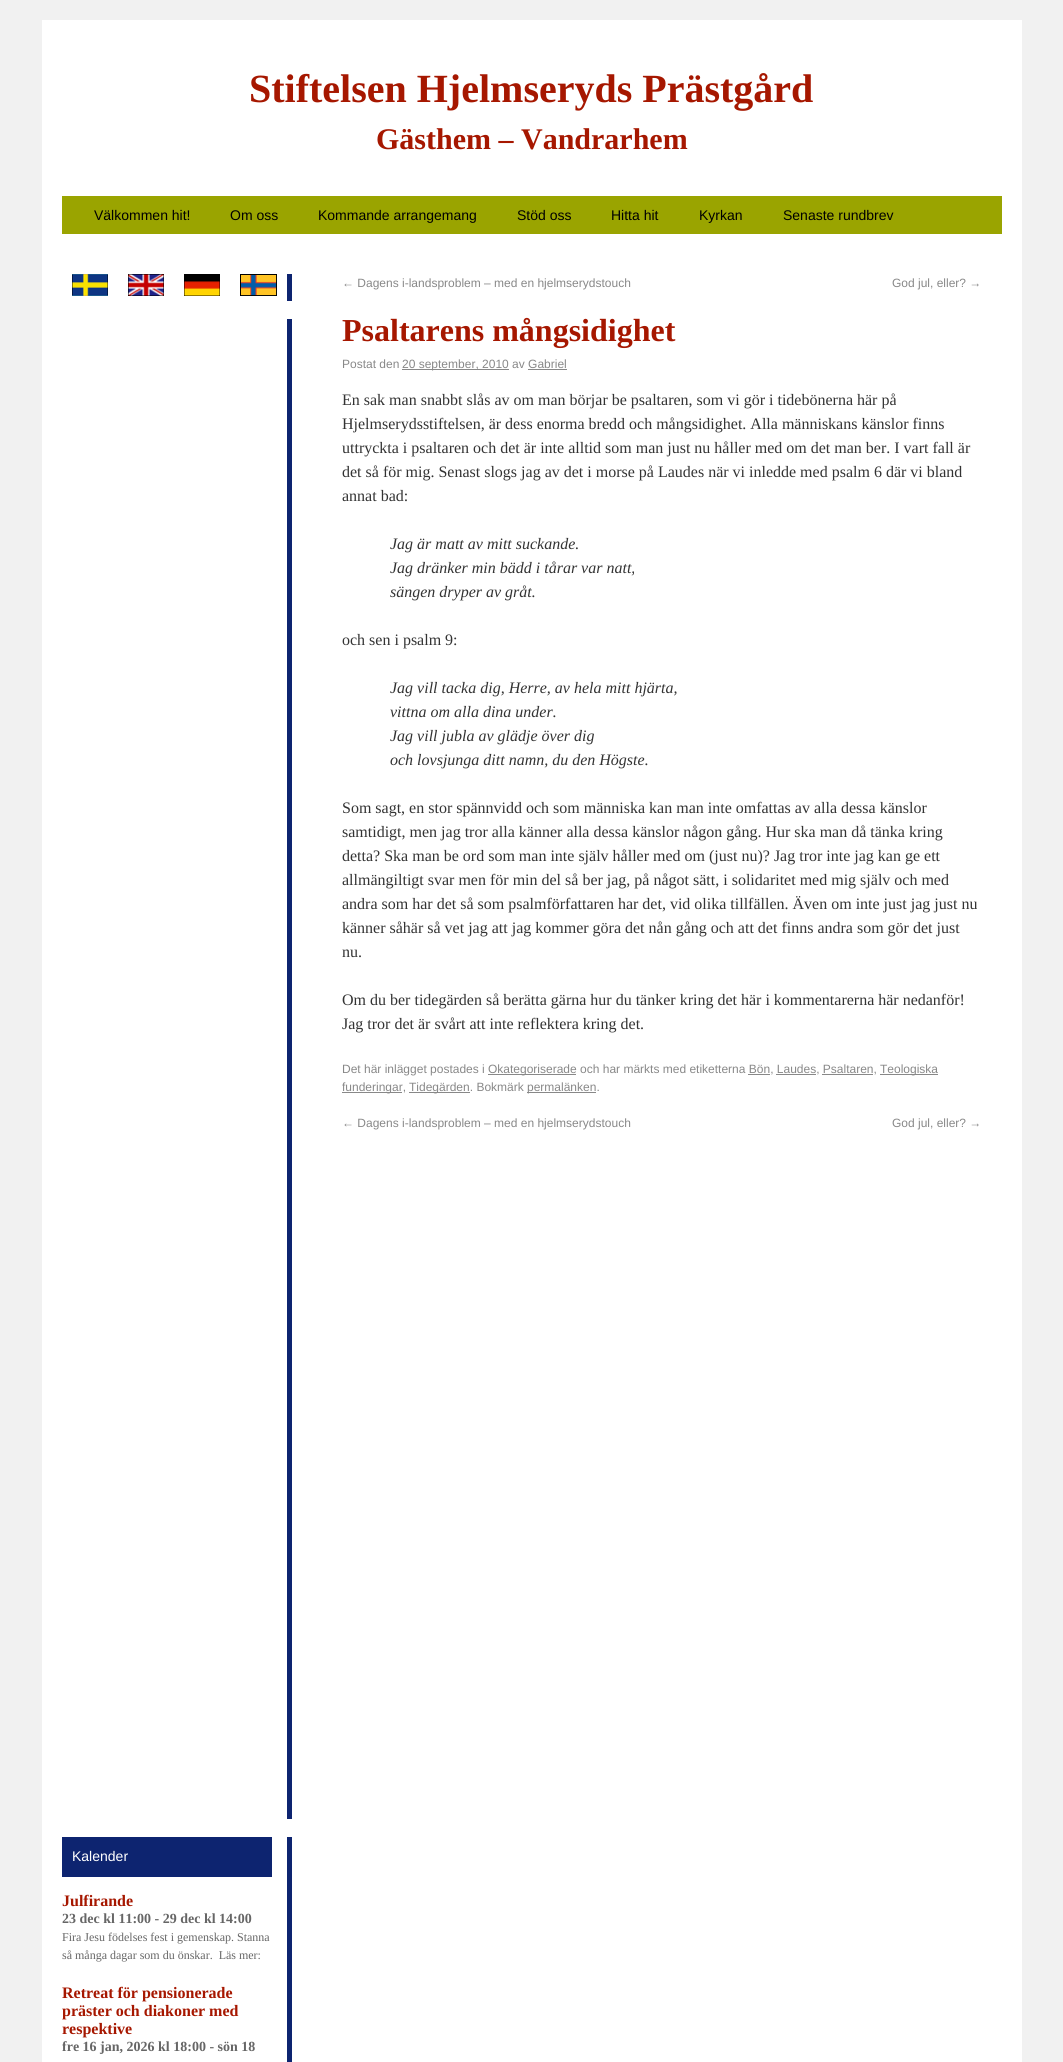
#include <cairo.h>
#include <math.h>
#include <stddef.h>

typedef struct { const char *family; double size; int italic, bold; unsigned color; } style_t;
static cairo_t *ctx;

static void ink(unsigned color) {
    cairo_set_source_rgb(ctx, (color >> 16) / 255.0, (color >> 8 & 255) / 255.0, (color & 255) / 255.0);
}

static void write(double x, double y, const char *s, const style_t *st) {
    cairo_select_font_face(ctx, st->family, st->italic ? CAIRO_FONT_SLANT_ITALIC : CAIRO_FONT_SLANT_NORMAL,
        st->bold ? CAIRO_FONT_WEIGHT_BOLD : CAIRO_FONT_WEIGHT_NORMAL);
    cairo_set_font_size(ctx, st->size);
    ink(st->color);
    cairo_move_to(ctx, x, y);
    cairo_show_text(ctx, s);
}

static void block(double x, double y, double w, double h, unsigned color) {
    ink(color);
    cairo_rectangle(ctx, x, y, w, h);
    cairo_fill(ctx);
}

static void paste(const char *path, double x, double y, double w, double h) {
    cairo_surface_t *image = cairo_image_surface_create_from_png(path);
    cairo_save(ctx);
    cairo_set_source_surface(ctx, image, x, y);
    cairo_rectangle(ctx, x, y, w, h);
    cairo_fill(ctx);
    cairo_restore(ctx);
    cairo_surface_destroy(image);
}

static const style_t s1 = {"Liberation Serif", 40, 0, 1, 0xa61700};
static const style_t s2 = {"Liberation Serif", 30, 0, 1, 0xa61700};
static const style_t s3 = {"Liberation Sans", 14, 0, 0, 0x000000};
static const style_t s4 = {"Liberation Sans", 12, 0, 0, 0x888888};
static const style_t s5 = {"Liberation Serif", 32, 0, 1, 0xa61700};
static const style_t s6 = {"Liberation Serif", 16, 0, 0, 0x333333};
static const style_t s7 = {"Liberation Serif", 16, 1, 0, 0x333333};
static const style_t s8 = {"Liberation Sans", 14, 0, 0, 0xffffff};
static const style_t s9 = {"Liberation Serif", 16, 0, 1, 0xa61700};
static const style_t s10 = {"Liberation Serif", 14, 0, 1, 0x666666};
static const style_t s11 = {"Liberation Serif", 12, 0, 0, 0x666666};

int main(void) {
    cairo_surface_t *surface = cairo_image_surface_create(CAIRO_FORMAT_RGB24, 1063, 2062);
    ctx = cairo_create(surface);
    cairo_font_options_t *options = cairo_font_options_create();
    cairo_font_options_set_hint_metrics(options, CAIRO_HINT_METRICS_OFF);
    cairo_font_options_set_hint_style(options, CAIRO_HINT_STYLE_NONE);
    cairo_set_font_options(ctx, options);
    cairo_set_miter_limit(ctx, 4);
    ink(0xf1f1f1);
    cairo_paint(ctx);
    block(42, 20, 980, 2042, 0xffffff);
    write(249, 102, "Stiftelsen Hjelmseryds Prästgård", &s1);
    write(376, 149, "Gästhem – Vandrarhem", &s2);
    block(62, 196, 940, 38, 0x9aa400);
    write(94, 220, "Välkommen hit!", &s3);
    write(230, 220, "Om oss", &s3);
    write(318, 220, "Kommande arrangemang", &s3);
    write(517, 220, "Stöd oss", &s3);
    write(611, 220, "Hitta hit", &s3);
    write(699, 220, "Kyrkan", &s3);
    write(783, 220, "Senaste rundbrev", &s3);
    write(342, 287, "← Dagens i-landsproblem – med en hjelmserydstouch", &s4);
    write(892, 287, "God jul, eller? →", &s4);
    write(342, 341, "Psaltarens mångsidighet", &s5);
    write(342, 368, "Postat den", &s4);
    block(402, 369, 107, 1, 0x888888);
    write(402, 368, "20 september, 2010 av Gabriel", &s4);
    block(528, 369, 39, 1, 0x888888);
    write(342, 405, "En sak man snabbt slås av om man börjar be psaltaren, som vi gör i tidebönerna här på", &s6);
    write(342, 429, "Hjelmserydsstiftelsen, är dess enorma bredd och mångsidighet. Alla människans känslor finns", &s6);
    write(342, 453, "uttryckta i psaltaren och det är inte alltid som man just nu håller med om det man ber. I vart fall är", &s6);
    write(342, 477, "det så för mig. Senast slogs jag av det i morse på Laudes när vi inledde med psalm 6 där vi bland", &s6);
    write(342, 501, "annat bad:", &s6);
    write(390, 549, "Jag är matt av mitt suckande.", &s7);
    write(390, 573, "Jag dränker min bädd i tårar var natt,", &s7);
    write(390, 597, "sängen dryper av gråt.", &s7);
    write(342, 645, "och sen i psalm 9:", &s6);
    write(390, 693, "Jag vill tacka dig, Herre, av hela mitt hjärta,", &s7);
    write(390, 717, "vittna om alla dina under.", &s7);
    write(390, 741, "Jag vill jubla av glädje över dig", &s7);
    write(390, 765, "och lovsjunga ditt namn, du den Högste.", &s7);
    write(342, 813, "Som sagt, en stor spännvidd och som människa kan man inte omfattas av alla dessa känslor", &s6);
    write(342, 837, "samtidigt, men jag tror alla känner alla dessa känslor någon gång. Hur ska man då tänka kring", &s6);
    write(342, 861, "detta? Ska man be ord som man inte själv håller med om (just nu)? Jag tror inte jag kan ge ett", &s6);
    write(342, 885, "allmängiltigt svar men för min del så ber jag, på något sätt, i solidaritet med mig själv och med", &s6);
    write(342, 909, "andra som har det så som psalmförfattaren har det, vid olika tillfällen. Även om inte just jag just nu", &s6);
    write(342, 933, "känner såhär så vet jag att jag kommer göra det nån gång och att det finns andra som gör det just", &s6);
    write(342, 957, "nu.", &s6);
    write(342, 1005, "Om du ber tidegärden så berätta gärna hur du tänker kring det här i kommentarerna här nedanför!", &s6);
    write(342, 1029, "Jag tror det är svårt att inte reflektera kring det.", &s6);
    write(342, 1073, "Det här inlägget postades i", &s4);
    block(488, 1074, 88, 1, 0x888888);
    write(488, 1073, "Okategoriserade och har märkts med etiketterna Bön, Laudes, Psaltaren,", &s4);
    block(880, 1074, 58, 1, 0x888888);
    write(880, 1073, "Teologiska", &s4);
    block(748, 1074, 22, 1, 0x888888);
    block(776, 1074, 40, 1, 0x888888);
    block(822, 1074, 51, 1, 0x888888);
    block(342, 1092, 60, 1, 0x888888);
    write(342, 1091, "funderingar,", &s4);
    block(409, 1092, 61, 1, 0x888888);
    write(409, 1091, "Tidegärden. Bokmärk", &s4);
    block(527, 1092, 69, 1, 0x888888);
    write(527, 1091, "permalänken.", &s4);
    write(342, 1127, "← Dagens i-landsproblem – med en hjelmserydstouch", &s4);
    write(892, 1127, "God jul, eller? →", &s4);
    block(287, 274, 5, 27, 0x0d2470);
    paste("pic1.png", 72, 274, 36, 22);
    paste("pic2.png", 128, 274, 36, 22);
    paste("pic3.png", 184, 274, 36, 22);
    paste("pic4.png", 240, 274, 37, 22);
    block(287, 319, 5, 1500, 0x0d2470);
    block(287, 1837, 5, 225, 0x0d2470);
    block(62, 1837, 210, 40, 0x0d2470);
    write(72, 1861, "Kalender", &s8);
    write(62, 1906, "Julfirande", &s9);
    write(62, 1923, "23 dec kl 11:00 - 29 dec kl 14:00", &s10);
    write(62, 1941, "Fira Jesu födelses fest i gemenskap. Stanna", &s11);
    write(62, 1959, "så många dagar som du önskar.  Läs mer:", &s11);
    write(62, 1998, "Retreat för pensionerade", &s9);
    cairo_save(ctx);
    cairo_rectangle(ctx, 62, 274, 250, 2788);
    cairo_clip(ctx);
    write(62, 2016, "präster och diakoner med", &s9);
    cairo_restore(ctx);
    write(62, 2034, "respektive", &s9);
    write(62, 2051, "fre 16 jan, 2026 kl 18:00 - sön 18", &s10);
    cairo_surface_write_to_png(surface, "screenshot.png");
    cairo_font_options_destroy(options);
    cairo_destroy(ctx);
    cairo_surface_destroy(surface);
    return 0;
}
